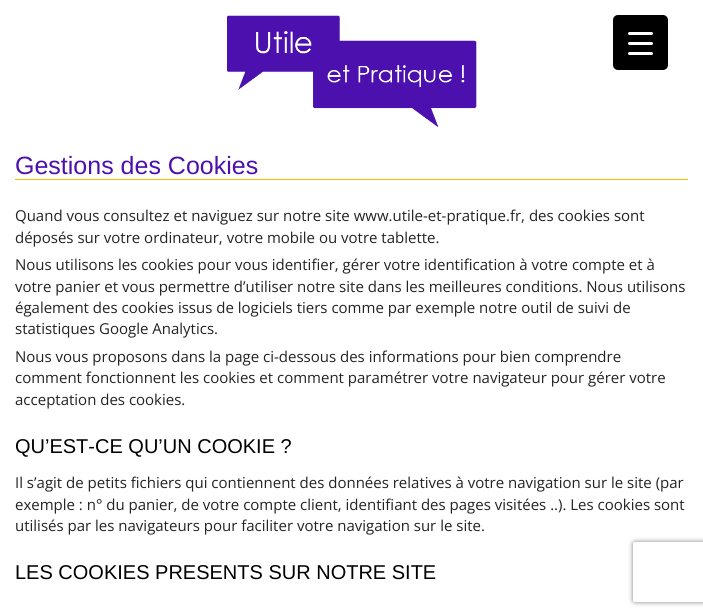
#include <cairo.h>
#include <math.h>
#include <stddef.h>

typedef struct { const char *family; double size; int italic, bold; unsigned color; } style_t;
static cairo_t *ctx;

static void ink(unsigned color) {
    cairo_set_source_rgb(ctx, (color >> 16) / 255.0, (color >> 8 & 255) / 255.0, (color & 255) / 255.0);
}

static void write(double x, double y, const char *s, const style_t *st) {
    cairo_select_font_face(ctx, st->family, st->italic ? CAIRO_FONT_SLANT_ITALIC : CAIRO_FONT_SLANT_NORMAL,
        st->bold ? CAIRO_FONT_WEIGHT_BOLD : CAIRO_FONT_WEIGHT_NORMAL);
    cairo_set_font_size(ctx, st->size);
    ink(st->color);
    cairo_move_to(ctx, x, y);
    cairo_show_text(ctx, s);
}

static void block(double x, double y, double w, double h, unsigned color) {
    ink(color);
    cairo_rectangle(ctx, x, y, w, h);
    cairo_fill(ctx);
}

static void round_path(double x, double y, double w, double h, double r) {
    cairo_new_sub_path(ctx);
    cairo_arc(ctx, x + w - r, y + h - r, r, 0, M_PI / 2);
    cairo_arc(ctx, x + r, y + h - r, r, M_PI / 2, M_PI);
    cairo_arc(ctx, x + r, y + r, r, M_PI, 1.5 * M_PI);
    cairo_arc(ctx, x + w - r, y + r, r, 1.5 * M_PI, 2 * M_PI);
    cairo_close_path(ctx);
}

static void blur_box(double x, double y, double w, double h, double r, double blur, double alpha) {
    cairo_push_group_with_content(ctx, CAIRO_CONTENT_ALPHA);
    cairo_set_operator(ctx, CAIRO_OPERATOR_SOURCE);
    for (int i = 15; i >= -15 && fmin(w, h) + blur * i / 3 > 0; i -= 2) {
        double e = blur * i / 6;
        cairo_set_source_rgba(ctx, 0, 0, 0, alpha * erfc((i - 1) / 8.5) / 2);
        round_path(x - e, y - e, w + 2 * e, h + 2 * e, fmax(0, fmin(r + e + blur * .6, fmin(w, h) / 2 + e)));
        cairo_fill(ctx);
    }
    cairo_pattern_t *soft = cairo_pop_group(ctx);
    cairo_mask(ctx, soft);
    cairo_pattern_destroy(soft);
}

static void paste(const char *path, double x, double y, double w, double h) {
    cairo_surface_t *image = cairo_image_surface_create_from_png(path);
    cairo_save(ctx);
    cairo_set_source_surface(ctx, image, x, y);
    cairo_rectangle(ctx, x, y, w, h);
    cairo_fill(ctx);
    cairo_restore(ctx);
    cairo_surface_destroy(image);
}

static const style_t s1 = {"Liberation Sans", 25, 0, 0, 0x4c10ae};
static const style_t s2 = {"Open Sans", 15, 0, 0, 0x232323};
static const style_t s3 = {"Liberation Sans", 20, 0, 0, 0x000000};

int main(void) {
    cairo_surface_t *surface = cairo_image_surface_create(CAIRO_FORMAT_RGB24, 703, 616);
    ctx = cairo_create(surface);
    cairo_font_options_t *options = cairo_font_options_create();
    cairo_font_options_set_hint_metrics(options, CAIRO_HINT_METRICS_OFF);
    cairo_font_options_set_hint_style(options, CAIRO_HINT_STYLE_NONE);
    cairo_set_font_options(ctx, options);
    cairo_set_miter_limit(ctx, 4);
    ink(0xffffff);
    cairo_paint(ctx);
    paste("pic1.png", 227, 15, 250, 112);
    ink(0x000000);
    round_path(613, 15, 55, 55, 5);
    cairo_fill(ctx);
    ink(0xffffff);
    round_path(628, 42, 25, 3, 1.5);
    cairo_fill(ctx);
    round_path(628, 32, 25, 3, 1.5);
    cairo_fill(ctx);
    round_path(628, 52, 25, 3, 1.5);
    cairo_fill(ctx);
    block(15, 179, 673, 1, 0xffba00);
    write(15, 174, "Gestions des Cookies", &s1);
    write(15, 221, "Quand vous consultez et naviguez sur notre site www.utile-et-pratique.fr, des cookies sont", &s2);
    write(15, 243, "déposés sur votre ordinateur, votre mobile ou votre tablette.", &s2);
    write(15, 270, "Nous utilisons les cookies pour vous identifier, gérer votre identification à votre compte et à", &s2);
    write(15, 292, "votre panier et vous permettre d’utiliser notre site dans les meilleures conditions. Nous utilisons", &s2);
    write(15, 313, "également des cookies issus de logiciels tiers comme par exemple notre outil de suivi de", &s2);
    write(15, 334, "statistiques Google Analytics.", &s2);
    write(15, 362, "Nous vous proposons dans la page ci-dessous des informations pour bien comprendre", &s2);
    write(15, 383, "comment fonctionnent les cookies et comment paramétrer votre navigateur pour gérer votre", &s2);
    write(15, 405, "acceptation des cookies.", &s2);
    write(15, 453, "QU’EST-CE QU’UN COOKIE ?", &s3);
    write(15, 488, "Il s’agit de petits fichiers qui contiennent des données relatives à votre navigation sur le site (par", &s2);
    write(15, 510, "exemple : n° du panier, de votre compte client, identifiant des pages visitées ..). Les cookies sont", &s2);
    write(15, 531, "utilisés par les navigateurs pour faciliter votre navigation sur le site.", &s2);
    write(15, 579, "LES COOKIES PRESENTS SUR NOTRE SITE", &s3);
    cairo_save(ctx);
    cairo_set_fill_rule(ctx, CAIRO_FILL_RULE_EVEN_ODD);
    cairo_new_path(ctx);
    cairo_move_to(ctx, 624, 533);
    cairo_line_to(ctx, 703, 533);
    cairo_line_to(ctx, 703, 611);
    cairo_line_to(ctx, 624, 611);
    cairo_close_path(ctx);
    cairo_move_to(ctx, 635, 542);
    cairo_line_to(ctx, 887, 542);
    cairo_curve_to(ctx, 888, 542, 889, 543, 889, 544);
    cairo_line_to(ctx, 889, 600);
    cairo_curve_to(ctx, 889, 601, 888, 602, 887, 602);
    cairo_line_to(ctx, 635, 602);
    cairo_curve_to(ctx, 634, 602, 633, 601, 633, 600);
    cairo_line_to(ctx, 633, 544);
    cairo_curve_to(ctx, 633, 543, 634, 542, 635, 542);
    cairo_close_path(ctx);
    cairo_clip(ctx);
    ink(0x808080);
    blur_box(633, 542, 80, 60, 2, 2.5, 1);
    cairo_restore(ctx);
    cairo_surface_write_to_png(surface, "screenshot.png");
    cairo_font_options_destroy(options);
    cairo_destroy(ctx);
    cairo_surface_destroy(surface);
    return 0;
}
